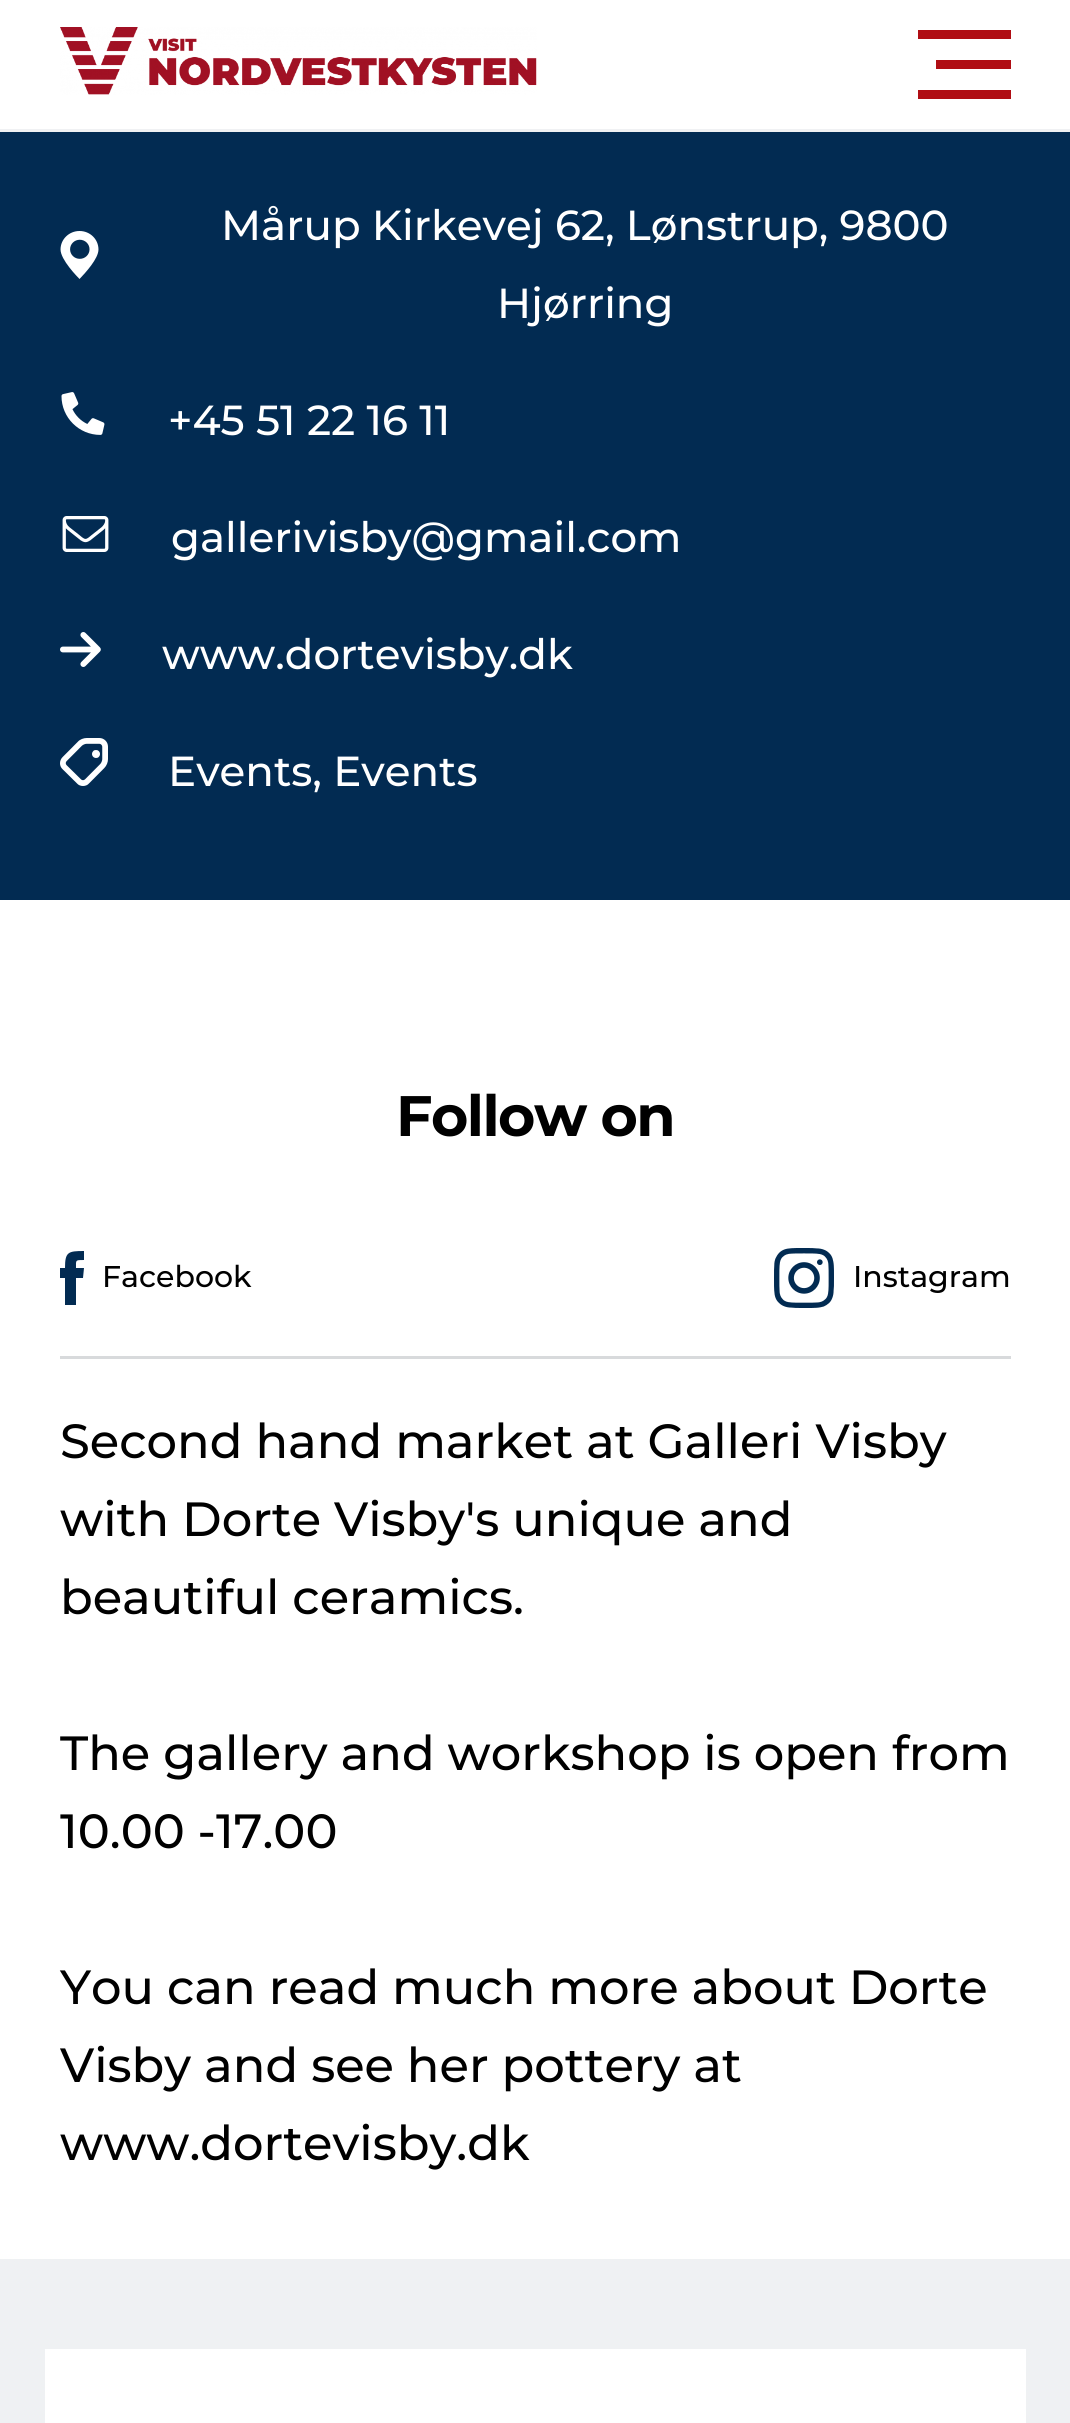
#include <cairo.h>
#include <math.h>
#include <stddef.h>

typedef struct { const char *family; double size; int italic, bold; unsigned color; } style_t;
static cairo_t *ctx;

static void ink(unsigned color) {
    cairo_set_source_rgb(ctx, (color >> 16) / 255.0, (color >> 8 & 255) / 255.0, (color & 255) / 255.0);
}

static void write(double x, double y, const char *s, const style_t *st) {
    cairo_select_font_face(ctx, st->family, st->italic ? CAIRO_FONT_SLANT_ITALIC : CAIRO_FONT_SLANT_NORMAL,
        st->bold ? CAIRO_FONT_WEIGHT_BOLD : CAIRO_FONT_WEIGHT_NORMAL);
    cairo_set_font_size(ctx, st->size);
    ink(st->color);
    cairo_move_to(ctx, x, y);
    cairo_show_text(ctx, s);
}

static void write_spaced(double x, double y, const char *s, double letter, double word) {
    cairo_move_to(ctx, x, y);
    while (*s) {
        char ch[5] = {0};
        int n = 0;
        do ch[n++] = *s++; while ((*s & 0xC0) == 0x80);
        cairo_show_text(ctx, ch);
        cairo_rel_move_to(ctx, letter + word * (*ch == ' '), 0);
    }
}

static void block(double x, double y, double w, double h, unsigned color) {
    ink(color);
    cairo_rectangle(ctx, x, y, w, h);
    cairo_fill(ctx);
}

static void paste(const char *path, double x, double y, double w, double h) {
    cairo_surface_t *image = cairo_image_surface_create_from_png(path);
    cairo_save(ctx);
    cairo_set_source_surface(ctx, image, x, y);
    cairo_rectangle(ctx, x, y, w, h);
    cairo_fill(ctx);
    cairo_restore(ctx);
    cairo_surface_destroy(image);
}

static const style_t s1 = {"Montserrat Medium", 42, 0, 0, 0xffffff};
static const style_t s2 = {"Montserrat Medium", 30, 0, 0, 0x000000};
static const style_t s3 = {"Montserrat Medium", 48, 0, 0, 0x000000};

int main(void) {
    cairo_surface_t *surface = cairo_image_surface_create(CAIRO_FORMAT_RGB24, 1070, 2423);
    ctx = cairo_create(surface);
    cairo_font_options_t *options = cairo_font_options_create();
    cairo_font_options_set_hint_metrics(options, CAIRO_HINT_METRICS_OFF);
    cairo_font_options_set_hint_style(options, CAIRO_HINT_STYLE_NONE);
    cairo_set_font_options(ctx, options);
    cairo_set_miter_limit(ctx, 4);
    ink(0xffffff);
    cairo_paint(ctx);
    block(0, 129, 1070, 3, 0xf0f1f3);
    paste("pic1.png", 60, 27, 477, 68);
    block(918, 30, 93, 9, 0xb00e14);
    block(936, 60, 75, 9, 0xb00e14);
    block(918, 90, 93, 9, 0xb00e14);
    block(0, 132, 1070, 768, 0x022b52);
    paste("pic2.png", 60, 231, 39, 48);
    write(221, 240, "Mårup Kirkevej 62, Lønstrup, 9800", &s1);
    write(497, 318, "Hjørring", &s1);
    paste("pic3.png", 61, 392, 44, 43);
    write(168, 435, "+45 51 22 16 11", &s1);
    paste("pic4.png", 62, 516, 47, 36);
    write(171, 552, "gallerivisby@gmail.com", &s1);
    paste("pic5.png", 60, 632, 41, 35);
    write(162, 669, "www.dortevisby.dk", &s1);
    paste("pic6.png", 60, 738, 48, 48);
    write(168, 786, "Events, Events", &s1);
    block(60, 1356, 951, 3, 0xd8dadc);
    cairo_select_font_face(ctx, "Montserrat", CAIRO_FONT_SLANT_NORMAL, CAIRO_FONT_WEIGHT_BOLD);
    cairo_set_font_size(ctx, 57);
    ink(0x000000);
    write_spaced(396, 1136, "Follow on", -1.5, 0);
    ink(0x022b52);
    cairo_new_path(ctx);
    cairo_move_to(ctx, 84, 1268);
    cairo_line_to(ctx, 76, 1268);
    cairo_curve_to(ctx, 76, 1260, 75, 1260, 84, 1260);
    cairo_line_to(ctx, 84, 1251);
    cairo_curve_to(ctx, 68, 1251, 65, 1252, 65, 1268);
    cairo_line_to(ctx, 60, 1268);
    cairo_line_to(ctx, 60, 1278);
    cairo_line_to(ctx, 65, 1278);
    cairo_line_to(ctx, 65, 1305);
    cairo_line_to(ctx, 76, 1305);
    cairo_line_to(ctx, 76, 1278);
    cairo_line_to(ctx, 83, 1278);
    cairo_close_path(ctx);
    cairo_fill(ctx);
    write(102, 1287, "Facebook", &s2);
    paste("pic7.png", 774, 1248, 60, 60);
    write(853, 1287, "Instagram", &s2);
    write(60, 1458, "Second hand market at Galleri Visby", &s3);
    write(60, 1536, "with Dorte Visby's unique and", &s3);
    write(60, 1614, "beautiful ceramics.", &s3);
    write(60, 1770, "The gallery and workshop is open from", &s3);
    write(60, 1848, "10.00 -17.00", &s3);
    write(60, 2004, "You can read much more about Dorte", &s3);
    write(60, 2082, "Visby and see her pottery at", &s3);
    write(60, 2160, "www.dortevisby.dk", &s3);
    block(0, 2259, 1070, 164, 0xeff1f3);
    block(45, 2349, 981, 74, 0xffffff);
    cairo_surface_write_to_png(surface, "screenshot.png");
    cairo_font_options_destroy(options);
    cairo_destroy(ctx);
    cairo_surface_destroy(surface);
    return 0;
}
